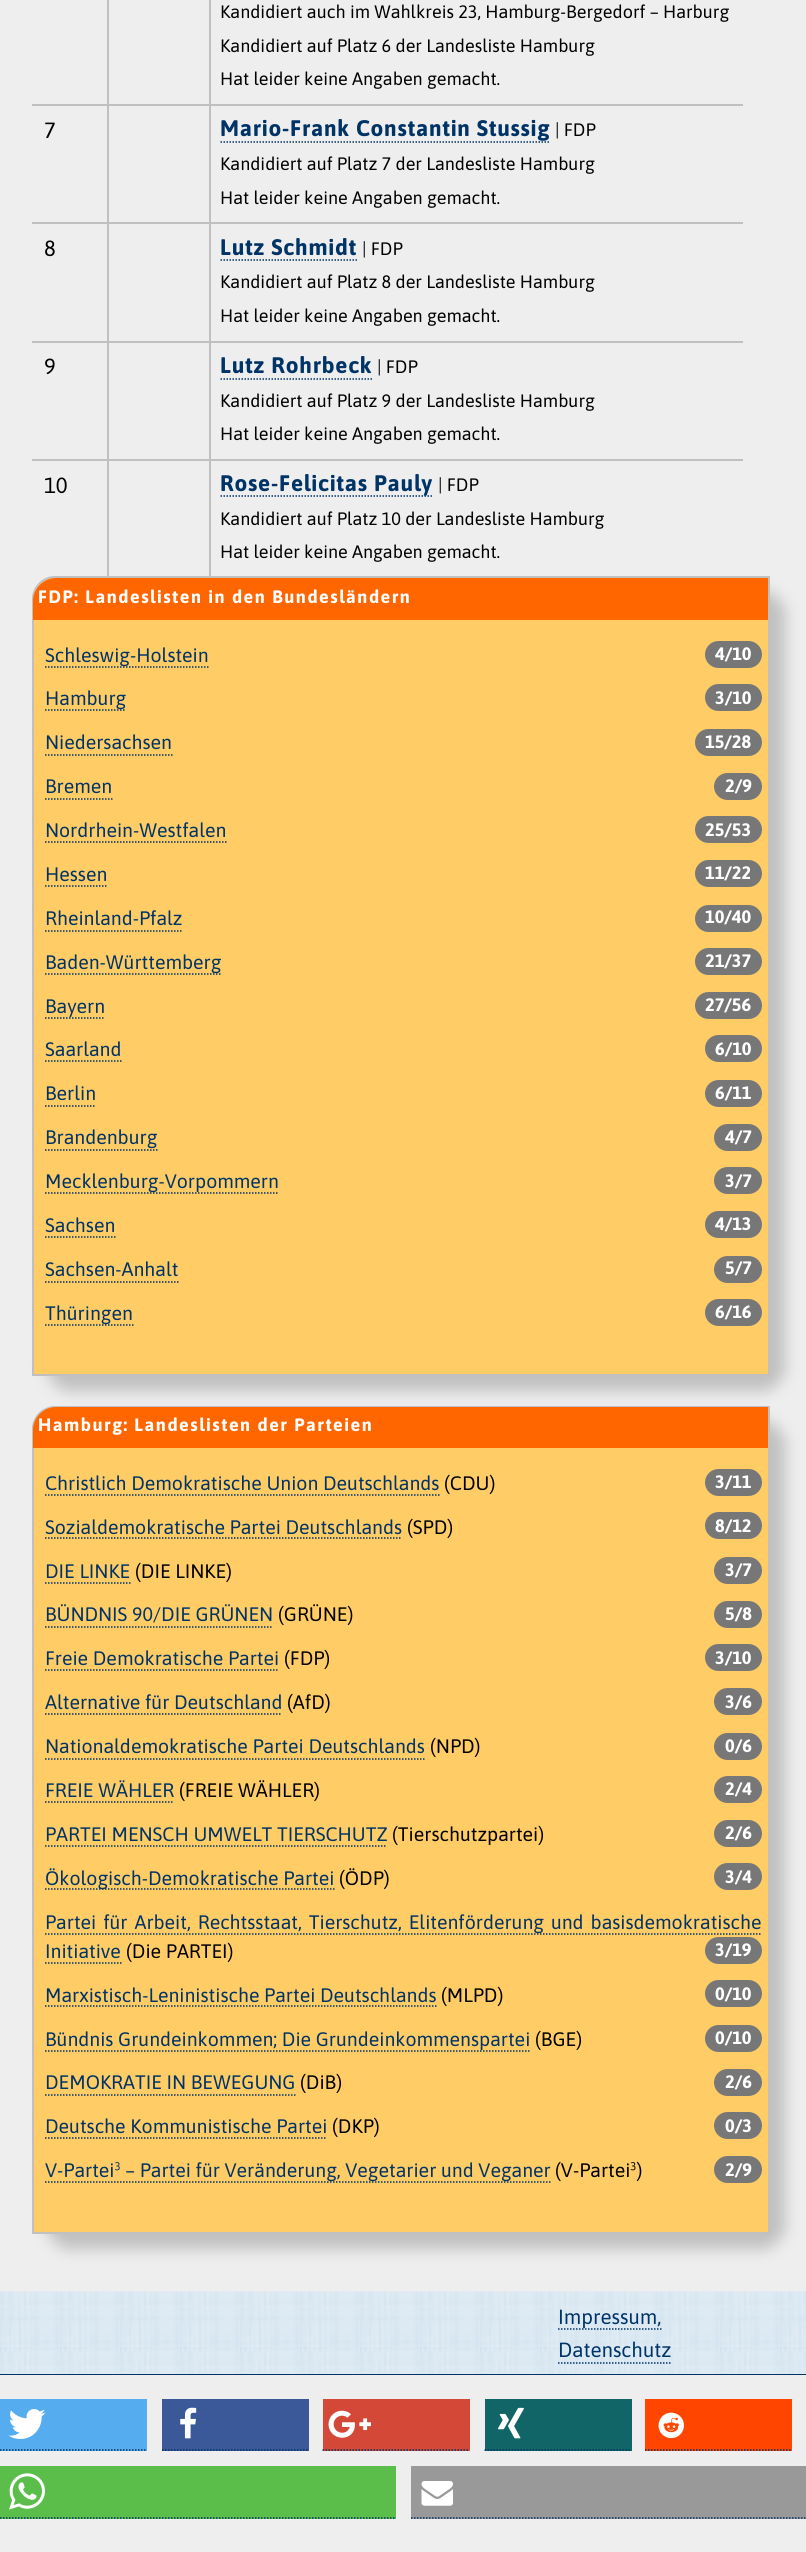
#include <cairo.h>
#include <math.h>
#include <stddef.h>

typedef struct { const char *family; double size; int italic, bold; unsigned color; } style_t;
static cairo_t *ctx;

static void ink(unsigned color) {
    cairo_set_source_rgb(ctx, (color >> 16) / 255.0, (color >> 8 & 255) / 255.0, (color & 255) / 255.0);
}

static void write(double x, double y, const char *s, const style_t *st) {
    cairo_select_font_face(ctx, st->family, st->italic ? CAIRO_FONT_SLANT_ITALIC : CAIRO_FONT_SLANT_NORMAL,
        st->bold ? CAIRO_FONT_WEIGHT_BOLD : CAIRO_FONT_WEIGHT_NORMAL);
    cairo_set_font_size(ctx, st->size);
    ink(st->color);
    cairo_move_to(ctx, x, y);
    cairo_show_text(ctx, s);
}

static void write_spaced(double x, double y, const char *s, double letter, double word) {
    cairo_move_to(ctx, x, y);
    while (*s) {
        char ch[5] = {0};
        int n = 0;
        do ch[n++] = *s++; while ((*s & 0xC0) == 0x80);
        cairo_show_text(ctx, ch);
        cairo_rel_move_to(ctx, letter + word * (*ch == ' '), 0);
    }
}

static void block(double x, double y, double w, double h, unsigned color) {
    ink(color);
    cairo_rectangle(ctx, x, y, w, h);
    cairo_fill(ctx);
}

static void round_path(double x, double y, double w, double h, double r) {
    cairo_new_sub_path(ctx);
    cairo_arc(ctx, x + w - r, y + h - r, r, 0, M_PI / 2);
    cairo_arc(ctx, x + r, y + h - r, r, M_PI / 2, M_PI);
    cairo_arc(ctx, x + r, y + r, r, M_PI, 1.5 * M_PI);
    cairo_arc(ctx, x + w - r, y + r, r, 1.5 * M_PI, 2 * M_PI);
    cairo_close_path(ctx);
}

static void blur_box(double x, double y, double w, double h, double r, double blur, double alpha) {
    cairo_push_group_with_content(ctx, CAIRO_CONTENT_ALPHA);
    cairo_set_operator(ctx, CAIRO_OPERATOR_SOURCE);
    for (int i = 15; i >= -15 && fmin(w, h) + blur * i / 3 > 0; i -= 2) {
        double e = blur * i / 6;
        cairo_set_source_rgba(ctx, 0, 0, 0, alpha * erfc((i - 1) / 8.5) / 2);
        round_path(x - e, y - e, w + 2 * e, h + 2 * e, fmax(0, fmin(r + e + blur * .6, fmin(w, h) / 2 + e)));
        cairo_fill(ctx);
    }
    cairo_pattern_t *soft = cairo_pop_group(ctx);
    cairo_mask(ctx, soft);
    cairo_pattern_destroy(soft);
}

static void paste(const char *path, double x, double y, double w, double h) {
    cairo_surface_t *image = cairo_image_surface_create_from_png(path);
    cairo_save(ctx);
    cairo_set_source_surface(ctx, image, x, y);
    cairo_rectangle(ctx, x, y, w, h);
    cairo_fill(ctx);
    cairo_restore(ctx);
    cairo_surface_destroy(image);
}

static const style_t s1 = {"Asap", 18, 0, 0, 0x000000};
static const style_t s2 = {"Asap", 22, 0, 0, 0x000000};
static const style_t s3 = {"Asap", 19.5, 0, 0, 0x003366};
static const style_t s4 = {"Asap", 18, 0, 1, 0xffffff};
static const style_t s5 = {"Asap", 19.5, 0, 0, 0x000000};
static const style_t s6 = {"Asap", 20.5, 0, 0, 0x003366};

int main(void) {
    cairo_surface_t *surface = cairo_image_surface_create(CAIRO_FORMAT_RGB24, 806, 2552);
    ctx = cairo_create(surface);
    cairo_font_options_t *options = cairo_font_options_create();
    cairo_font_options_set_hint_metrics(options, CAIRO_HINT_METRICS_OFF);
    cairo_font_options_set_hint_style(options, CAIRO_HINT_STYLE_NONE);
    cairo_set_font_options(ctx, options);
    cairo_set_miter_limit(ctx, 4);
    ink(0xeeeeee);
    cairo_paint(ctx);
    block(209, 459, 2, 119, 0xc0c0c0);
    block(209, 459, 534, 2, 0xc0c0c0);
    block(209, 341, 2, 120, 0xc0c0c0);
    block(209, 341, 534, 2, 0xc0c0c0);
    block(209, 222, 2, 120, 0xc0c0c0);
    block(209, 222, 534, 2, 0xc0c0c0);
    block(209, 104, 2, 120, 0xc0c0c0);
    block(209, 104, 534, 2, 0xc0c0c0);
    block(209, 0, 2, 105, 0xc0c0c0);
    block(107, 459, 2, 119, 0xc0c0c0);
    block(107, 459, 103, 2, 0xc0c0c0);
    block(107, 341, 2, 120, 0xc0c0c0);
    block(107, 341, 103, 2, 0xc0c0c0);
    block(107, 222, 2, 120, 0xc0c0c0);
    block(107, 222, 103, 2, 0xc0c0c0);
    block(107, 104, 2, 120, 0xc0c0c0);
    block(107, 104, 103, 2, 0xc0c0c0);
    block(107, 0, 2, 105, 0xc0c0c0);
    block(32, 104, 76, 2, 0xc0c0c0);
    write(220, 18, "Kandidiert auch im Wahlkreis 23, Hamburg-Bergedorf – Harburg", &s1);
    write(220, 52, "Kandidiert auf Platz 6 der Landesliste Hamburg", &s1);
    write(220, 85, "Hat leider keine Angaben gemacht.", &s1);
    block(32, 222, 76, 2, 0xc0c0c0);
    write(44, 138, "7", &s2);
    cairo_select_font_face(ctx, "Asap", CAIRO_FONT_SLANT_NORMAL, CAIRO_FONT_WEIGHT_BOLD);
    cairo_set_font_size(ctx, 22.5);
    ink(0x003366);
    write_spaced(220, 136, "Mario-Frank Constantin Stussig", 0.75, 0);
    cairo_new_path(ctx);
    cairo_move_to(ctx, 220.5, 142);
    cairo_line_to(ctx, 550.5, 142);
    cairo_set_line_width(ctx, 1.5);
    cairo_set_dash(ctx, (double[]){1.5, 1.5}, 2, 0);
    cairo_stroke(ctx);
    write(555, 136, "| FDP", &s1);
    write(220, 170, "Kandidiert auf Platz 7 der Landesliste Hamburg", &s1);
    write(220, 204, "Hat leider keine Angaben gemacht.", &s1);
    block(32, 341, 76, 2, 0xc0c0c0);
    write(44, 256, "8", &s2);
    cairo_select_font_face(ctx, "Asap", CAIRO_FONT_SLANT_NORMAL, CAIRO_FONT_WEIGHT_BOLD);
    cairo_set_font_size(ctx, 22.5);
    ink(0x003366);
    write_spaced(220, 255, "Lutz Schmidt", 0.75, 0);
    cairo_new_path(ctx);
    cairo_move_to(ctx, 220.5, 260);
    cairo_line_to(ctx, 357, 260);
    cairo_stroke(ctx);
    write(362, 255, "| FDP", &s1);
    write(220, 288, "Kandidiert auf Platz 8 der Landesliste Hamburg", &s1);
    write(220, 322, "Hat leider keine Angaben gemacht.", &s1);
    block(32, 459, 76, 2, 0xc0c0c0);
    write(44, 374, "9", &s2);
    cairo_select_font_face(ctx, "Asap", CAIRO_FONT_SLANT_NORMAL, CAIRO_FONT_WEIGHT_BOLD);
    cairo_set_font_size(ctx, 22.5);
    ink(0x003366);
    write_spaced(220, 373, "Lutz Rohrbeck", 0.75, 0);
    cairo_new_path(ctx);
    cairo_move_to(ctx, 220.5, 379);
    cairo_line_to(ctx, 373.5, 379);
    cairo_stroke(ctx);
    write(377, 373, "| FDP", &s1);
    write(220, 407, "Kandidiert auf Platz 9 der Landesliste Hamburg", &s1);
    write(220, 440, "Hat leider keine Angaben gemacht.", &s1);
    write(44, 493, "10", &s2);
    cairo_new_path(ctx);
    cairo_move_to(ctx, 220.5, 496);
    cairo_line_to(ctx, 433.5, 496);
    ink(0x003366);
    cairo_stroke(ctx);
    cairo_select_font_face(ctx, "Asap", CAIRO_FONT_SLANT_NORMAL, CAIRO_FONT_WEIGHT_BOLD);
    cairo_set_font_size(ctx, 22.5);
    write_spaced(220, 491, "Rose-Felicitas Pauly", 0.75, 0);
    write(438, 491, "| FDP", &s1);
    write(220, 525, "Kandidiert auf Platz 10 der Landesliste Hamburg", &s1);
    write(220, 558, "Hat leider keine Angaben gemacht.", &s1);
    ink(0xc0c0c0);
    blur_box(47, 591, 738, 800, 23, 7.5, 1);
    ink(0xffcc66);
    cairo_new_path(ctx);
    cairo_move_to(ctx, 55, 577);
    cairo_line_to(ctx, 769, 577);
    cairo_line_to(ctx, 769, 1375);
    cairo_line_to(ctx, 33, 1375);
    cairo_line_to(ctx, 33, 599);
    cairo_curve_to(ctx, 33, 587, 43, 577, 55, 577);
    cairo_close_path(ctx);
    cairo_fill_preserve(ctx);
    ink(0xc0c0c0);
    cairo_set_line_width(ctx, 2);
    cairo_set_dash(ctx, NULL, 0, 0);
    cairo_stroke(ctx);
    ink(0xff6600);
    cairo_new_path(ctx);
    cairo_move_to(ctx, 56, 578);
    cairo_line_to(ctx, 768, 578);
    cairo_line_to(ctx, 768, 620);
    cairo_line_to(ctx, 33, 620);
    cairo_line_to(ctx, 33, 601);
    cairo_curve_to(ctx, 33, 588.5, 43.5, 578, 56, 578);
    cairo_close_path(ctx);
    cairo_fill(ctx);
    cairo_select_font_face(ctx, "Asap", CAIRO_FONT_SLANT_NORMAL, CAIRO_FONT_WEIGHT_BOLD);
    ink(0xffffff);
    write_spaced(38, 603, "FDP: Landeslisten in den Bundesländern", 1.5, 0);
    cairo_new_path(ctx);
    cairo_move_to(ctx, 45, 667);
    cairo_line_to(ctx, 208.5, 667);
    ink(0x003366);
    cairo_set_line_width(ctx, 1.5);
    cairo_set_dash(ctx, (double[]){1.5, 1.5}, 2, 0);
    cairo_stroke(ctx);
    write(45, 662, "Schleswig-Holstein", &s3);
    ink(0x777777);
    round_path(705, 641, 57, 27, 13.5);
    cairo_fill(ctx);
    write(715, 660, "4/10", &s4);
    cairo_new_path(ctx);
    cairo_move_to(ctx, 45, 710);
    cairo_line_to(ctx, 126, 710);
    ink(0x003366);
    cairo_stroke(ctx);
    write(45, 705, "Hamburg", &s3);
    ink(0x777777);
    round_path(705, 684, 57, 27, 13.5);
    cairo_fill(ctx);
    write(715, 704, "3/10", &s4);
    write(45, 749, "Niedersachsen", &s3);
    cairo_new_path(ctx);
    cairo_move_to(ctx, 45, 755);
    cairo_line_to(ctx, 172.5, 755);
    cairo_stroke(ctx);
    ink(0x777777);
    round_path(695, 729, 67, 27, 13.5);
    cairo_fill(ctx);
    write(705, 748, "15/28", &s4);
    write(45, 793, "Bremen", &s3);
    cairo_new_path(ctx);
    cairo_move_to(ctx, 45, 799);
    cairo_line_to(ctx, 112.5, 799);
    cairo_stroke(ctx);
    ink(0x777777);
    round_path(714, 773, 48, 27, 13.5);
    cairo_fill(ctx);
    write(725, 792, "2/9", &s4);
    write(45, 837, "Nordrhein-Westfalen", &s3);
    cairo_new_path(ctx);
    cairo_move_to(ctx, 45, 842);
    cairo_line_to(ctx, 226.5, 842);
    cairo_stroke(ctx);
    ink(0x777777);
    round_path(695, 816, 67, 27, 13.5);
    cairo_fill(ctx);
    write(705, 836, "25/53", &s4);
    write(45, 881, "Hessen", &s3);
    cairo_new_path(ctx);
    cairo_move_to(ctx, 45, 886);
    cairo_line_to(ctx, 108, 886);
    cairo_stroke(ctx);
    ink(0x777777);
    round_path(695, 860, 67, 27, 13.5);
    cairo_fill(ctx);
    write(705, 879, "11/22", &s4);
    write(45, 925, "Rheinland-Pfalz", &s3);
    cairo_new_path(ctx);
    cairo_move_to(ctx, 45, 931);
    cairo_line_to(ctx, 183, 931);
    cairo_stroke(ctx);
    ink(0x777777);
    round_path(695, 905, 67, 27, 13.5);
    cairo_fill(ctx);
    write(705, 923, "10/40", &s4);
    cairo_new_path(ctx);
    cairo_move_to(ctx, 45, 974);
    cairo_line_to(ctx, 222, 974);
    ink(0x003366);
    cairo_stroke(ctx);
    write(45, 969, "Baden-Württemberg", &s3);
    ink(0x777777);
    round_path(695, 948, 67, 27, 13.5);
    cairo_fill(ctx);
    write(705, 967, "21/37", &s4);
    cairo_new_path(ctx);
    cairo_move_to(ctx, 45, 1018);
    cairo_line_to(ctx, 105, 1018);
    ink(0x003366);
    cairo_stroke(ctx);
    write(45, 1013, "Bayern", &s3);
    ink(0x777777);
    round_path(695, 992, 67, 27, 13.5);
    cairo_fill(ctx);
    write(705, 1011, "27/56", &s4);
    write(45, 1056, "Saarland", &s3);
    cairo_new_path(ctx);
    cairo_move_to(ctx, 45, 1061);
    cairo_line_to(ctx, 121.5, 1061);
    cairo_stroke(ctx);
    ink(0x777777);
    round_path(705, 1035, 57, 27, 13.5);
    cairo_fill(ctx);
    write(715, 1055, "6/10", &s4);
    write(45, 1100, "Berlin", &s3);
    cairo_new_path(ctx);
    cairo_move_to(ctx, 45, 1106);
    cairo_line_to(ctx, 96, 1106);
    cairo_stroke(ctx);
    ink(0x777777);
    round_path(705, 1080, 57, 27, 13.5);
    cairo_fill(ctx);
    write(715, 1099, "6/11", &s4);
    write(45, 1144, "Brandenburg", &s3);
    cairo_new_path(ctx);
    cairo_move_to(ctx, 45, 1150);
    cairo_line_to(ctx, 157.5, 1150);
    cairo_stroke(ctx);
    ink(0x777777);
    round_path(714, 1124, 48, 27, 13.5);
    cairo_fill(ctx);
    write(725, 1143, "4/7", &s4);
    cairo_new_path(ctx);
    cairo_move_to(ctx, 45, 1193);
    cairo_line_to(ctx, 279, 1193);
    ink(0x003366);
    cairo_stroke(ctx);
    write(45, 1188, "Mecklenburg-Vorpommern", &s3);
    ink(0x777777);
    round_path(714, 1167, 48, 27, 13.5);
    cairo_fill(ctx);
    write(725, 1187, "3/7", &s4);
    write(45, 1232, "Sachsen", &s3);
    cairo_new_path(ctx);
    cairo_move_to(ctx, 45, 1237);
    cairo_line_to(ctx, 115.5, 1237);
    cairo_stroke(ctx);
    ink(0x777777);
    round_path(705, 1211, 57, 27, 13.5);
    cairo_fill(ctx);
    write(715, 1230, "4/13", &s4);
    write(45, 1276, "Sachsen-Anhalt", &s3);
    cairo_new_path(ctx);
    cairo_move_to(ctx, 45, 1282);
    cairo_line_to(ctx, 178.5, 1282);
    cairo_stroke(ctx);
    ink(0x777777);
    round_path(714, 1256, 48, 27, 13.5);
    cairo_fill(ctx);
    write(725, 1274, "5/7", &s4);
    cairo_new_path(ctx);
    cairo_move_to(ctx, 45, 1325);
    cairo_line_to(ctx, 133.5, 1325);
    ink(0x003366);
    cairo_stroke(ctx);
    write(45, 1320, "Thüringen", &s3);
    ink(0x777777);
    round_path(705, 1299, 57, 27, 13.5);
    cairo_fill(ctx);
    write(715, 1318, "6/16", &s4);
    ink(0xc0c0c0);
    blur_box(47, 1421, 738, 828, 23, 7.5, 1);
    ink(0xffcc66);
    cairo_new_path(ctx);
    cairo_move_to(ctx, 55, 1407);
    cairo_line_to(ctx, 769, 1407);
    cairo_line_to(ctx, 769, 2233);
    cairo_line_to(ctx, 33, 2233);
    cairo_line_to(ctx, 33, 1429);
    cairo_curve_to(ctx, 33, 1417, 43, 1407, 55, 1407);
    cairo_close_path(ctx);
    cairo_fill_preserve(ctx);
    ink(0xc0c0c0);
    cairo_set_line_width(ctx, 2);
    cairo_set_dash(ctx, NULL, 0, 0);
    cairo_stroke(ctx);
    ink(0xff6600);
    cairo_new_path(ctx);
    cairo_move_to(ctx, 56, 1407);
    cairo_line_to(ctx, 768, 1407);
    cairo_line_to(ctx, 768, 1448);
    cairo_line_to(ctx, 33, 1448);
    cairo_line_to(ctx, 33, 1430);
    cairo_curve_to(ctx, 33, 1417.5, 43.5, 1407, 56, 1407);
    cairo_close_path(ctx);
    cairo_fill(ctx);
    ink(0xffffff);
    write_spaced(38, 1431, "Hamburg: Landeslisten der Parteien", 1.5, 0);
    write(45, 1490, "Christlich Demokratische Union Deutschlands", &s3);
    cairo_new_path(ctx);
    cairo_move_to(ctx, 45, 1495);
    cairo_line_to(ctx, 439.5, 1495);
    cairo_set_line_width(ctx, 1.5);
    cairo_set_dash(ctx, (double[]){1.5, 1.5}, 2, 0);
    cairo_stroke(ctx);
    write(444, 1490, "(CDU)", &s5);
    ink(0x777777);
    round_path(705, 1469, 57, 27, 13.5);
    cairo_fill(ctx);
    write(715, 1488, "3/11", &s4);
    write(45, 1534, "Sozialdemokratische Partei Deutschlands", &s3);
    cairo_new_path(ctx);
    cairo_move_to(ctx, 45, 1538);
    cairo_line_to(ctx, 402, 1538);
    cairo_stroke(ctx);
    write(407, 1534, "(SPD)", &s5);
    ink(0x777777);
    round_path(705, 1512, 57, 27, 13.5);
    cairo_fill(ctx);
    write(715, 1532, "8/12", &s4);
    write(45, 1578, "DIE LINKE", &s3);
    cairo_new_path(ctx);
    cairo_move_to(ctx, 45, 1583);
    cairo_line_to(ctx, 130.5, 1583);
    cairo_stroke(ctx);
    write(135, 1578, "(DIE LINKE)", &s5);
    ink(0x777777);
    round_path(714, 1557, 48, 27, 13.5);
    cairo_fill(ctx);
    write(725, 1576, "3/7", &s4);
    write(45, 1621, "BÜNDNIS 90/DIE GRÜNEN", &s3);
    cairo_new_path(ctx);
    cairo_move_to(ctx, 45, 1627);
    cairo_line_to(ctx, 273, 1627);
    cairo_stroke(ctx);
    write(278, 1621, "(GRÜNE)", &s5);
    ink(0x777777);
    round_path(714, 1601, 48, 27, 13.5);
    cairo_fill(ctx);
    write(725, 1620, "5/8", &s4);
    write(45, 1665, "Freie Demokratische Partei", &s3);
    cairo_new_path(ctx);
    cairo_move_to(ctx, 45, 1670);
    cairo_line_to(ctx, 279, 1670);
    cairo_stroke(ctx);
    write(284, 1665, "(FDP)", &s5);
    ink(0x777777);
    round_path(705, 1644, 57, 27, 13.5);
    cairo_fill(ctx);
    write(715, 1664, "3/10", &s4);
    write(45, 1709, "Alternative für Deutschland", &s3);
    cairo_new_path(ctx);
    cairo_move_to(ctx, 45, 1714);
    cairo_line_to(ctx, 282, 1714);
    cairo_stroke(ctx);
    write(287, 1709, "(AfD)", &s5);
    ink(0x777777);
    round_path(714, 1688, 48, 27, 13.5);
    cairo_fill(ctx);
    write(725, 1708, "3/6", &s4);
    write(45, 1753, "Nationaldemokratische Partei Deutschlands", &s3);
    cairo_new_path(ctx);
    cairo_move_to(ctx, 45, 1759);
    cairo_line_to(ctx, 424.5, 1759);
    cairo_stroke(ctx);
    write(430, 1753, "(NPD)", &s5);
    ink(0x777777);
    round_path(714, 1733, 48, 27, 13.5);
    cairo_fill(ctx);
    write(725, 1752, "0/6", &s4);
    write(45, 1797, "FREIE WÄHLER", &s3);
    cairo_new_path(ctx);
    cairo_move_to(ctx, 45, 1802);
    cairo_line_to(ctx, 174, 1802);
    cairo_stroke(ctx);
    write(179, 1797, "(FREIE WÄHLER)", &s5);
    ink(0x777777);
    round_path(714, 1776, 48, 27, 13.5);
    cairo_fill(ctx);
    write(725, 1795, "2/4", &s4);
    write(45, 1841, "PARTEI MENSCH UMWELT TIERSCHUTZ", &s3);
    cairo_new_path(ctx);
    cairo_move_to(ctx, 45, 1846);
    cairo_line_to(ctx, 387, 1846);
    cairo_stroke(ctx);
    write(392, 1841, "(Tierschutzpartei)", &s5);
    ink(0x777777);
    round_path(714, 1820, 48, 27, 13.5);
    cairo_fill(ctx);
    write(725, 1839, "2/6", &s4);
    cairo_new_path(ctx);
    cairo_move_to(ctx, 45, 1889);
    cairo_line_to(ctx, 334.5, 1889);
    ink(0x003366);
    cairo_stroke(ctx);
    write(45, 1885, "Ökologisch-Demokratische Partei", &s3);
    write(339, 1885, "(ÖDP)", &s5);
    ink(0x777777);
    round_path(714, 1863, 48, 27, 13.5);
    cairo_fill(ctx);
    write(725, 1883, "3/4", &s4);
    cairo_new_path(ctx);
    cairo_move_to(ctx, 45, 1934);
    cairo_line_to(ctx, 762, 1934);
    ink(0x003366);
    cairo_stroke(ctx);
    cairo_select_font_face(ctx, "Asap", CAIRO_FONT_SLANT_NORMAL, CAIRO_FONT_WEIGHT_NORMAL);
    cairo_set_font_size(ctx, 19.5);
    write_spaced(45, 1929, "Partei für Arbeit, Rechtsstaat, Tierschutz, Elitenförderung und basisdemokratische", 0, 2.25);
    write(45, 1958, "Initiative", &s3);
    cairo_new_path(ctx);
    cairo_move_to(ctx, 45, 1963);
    cairo_line_to(ctx, 121.5, 1963);
    cairo_stroke(ctx);
    write(126, 1958, "(Die PARTEI)", &s5);
    ink(0x777777);
    round_path(705, 1937, 57, 27, 13.5);
    cairo_fill(ctx);
    write(715, 1956, "3/19", &s4);
    write(45, 2002, "Marxistisch-Leninistische Partei Deutschlands", &s3);
    cairo_new_path(ctx);
    cairo_move_to(ctx, 45, 2006);
    cairo_line_to(ctx, 436.5, 2006);
    cairo_stroke(ctx);
    write(441, 2002, "(MLPD)", &s5);
    ink(0x777777);
    round_path(705, 1980, 57, 27, 13.5);
    cairo_fill(ctx);
    write(715, 2000, "0/10", &s4);
    cairo_new_path(ctx);
    cairo_move_to(ctx, 45, 2051);
    cairo_line_to(ctx, 531, 2051);
    ink(0x003366);
    cairo_stroke(ctx);
    write(45, 2046, "Bündnis Grundeinkommen; Die Grundeinkommenspartei", &s3);
    write(535, 2046, "(BGE)", &s5);
    ink(0x777777);
    round_path(705, 2025, 57, 27, 13.5);
    cairo_fill(ctx);
    write(715, 2044, "0/10", &s4);
    write(45, 2089, "DEMOKRATIE IN BEWEGUNG", &s3);
    cairo_new_path(ctx);
    cairo_move_to(ctx, 45, 2095);
    cairo_line_to(ctx, 295.5, 2095);
    cairo_stroke(ctx);
    write(300, 2089, "(DiB)", &s5);
    ink(0x777777);
    round_path(714, 2069, 48, 27, 13.5);
    cairo_fill(ctx);
    write(725, 2088, "2/6", &s4);
    write(45, 2133, "Deutsche Kommunistische Partei", &s3);
    cairo_new_path(ctx);
    cairo_move_to(ctx, 45, 2138);
    cairo_line_to(ctx, 327, 2138);
    cairo_stroke(ctx);
    write(332, 2133, "(DKP)", &s5);
    ink(0x777777);
    round_path(714, 2112, 48, 27, 13.5);
    cairo_fill(ctx);
    write(725, 2132, "0/3", &s4);
    cairo_new_path(ctx);
    cairo_move_to(ctx, 45, 2182);
    cairo_line_to(ctx, 550.5, 2182);
    ink(0x003366);
    cairo_stroke(ctx);
    write(45, 2177, "V-Partei³ – Partei für Veränderung, Vegetarier und Veganer", &s3);
    write(555, 2177, "(V-Partei³)", &s5);
    ink(0x777777);
    round_path(714, 2156, 48, 27, 13.5);
    cairo_fill(ctx);
    write(725, 2176, "2/9", &s4);
    block(0, 2374, 806, 1, 0x003366);
    paste("pic1.png", 0, 2291, 806, 83);
    cairo_new_path(ctx);
    cairo_move_to(ctx, 558, 2329);
    cairo_line_to(ctx, 661.5, 2329);
    cairo_stroke(ctx);
    write(558, 2324, "Impressum,", &s6);
    write(558, 2357, "Datenschutz", &s6);
    cairo_new_path(ctx);
    cairo_move_to(ctx, 558, 2363);
    cairo_line_to(ctx, 670.5, 2363);
    cairo_stroke(ctx);
    block(0, 2399, 147, 52, 0x55acee);
    cairo_new_path(ctx);
    cairo_move_to(ctx, 0, 2450);
    cairo_line_to(ctx, 147, 2450);
    ink(0x003366);
    cairo_stroke(ctx);
    paste("pic2.png", 8, 2409, 38, 30);
    block(162, 2399, 147, 52, 0x3b5998);
    cairo_new_path(ctx);
    cairo_move_to(ctx, 162, 2450);
    cairo_line_to(ctx, 309, 2450);
    ink(0x003366);
    cairo_stroke(ctx);
    paste("pic3.png", 180, 2407, 17, 32);
    block(323, 2399, 147, 52, 0xd34836);
    cairo_new_path(ctx);
    cairo_move_to(ctx, 322.5, 2450);
    cairo_line_to(ctx, 469.5, 2450);
    ink(0x003366);
    cairo_stroke(ctx);
    paste("pic4.png", 328, 2410, 43, 28);
    block(485, 2399, 147, 52, 0x126567);
    cairo_new_path(ctx);
    cairo_move_to(ctx, 484.5, 2450);
    cairo_line_to(ctx, 631.5, 2450);
    ink(0x003366);
    cairo_stroke(ctx);
    paste("pic5.png", 498, 2407, 26, 32);
    block(645, 2399, 147, 52, 0xff4500);
    cairo_new_path(ctx);
    cairo_move_to(ctx, 645, 2450);
    cairo_line_to(ctx, 792, 2450);
    ink(0x003366);
    cairo_stroke(ctx);
    paste("pic6.png", 658, 2412, 26, 27);
    block(0, 2466, 396, 53, 0x5cbe4a);
    cairo_new_path(ctx);
    cairo_move_to(ctx, 0, 2518);
    cairo_line_to(ctx, 396, 2518);
    ink(0x003366);
    cairo_stroke(ctx);
    paste("pic7.png", 9, 2473, 36, 37);
    block(411, 2466, 395, 53, 0x999999);
    cairo_new_path(ctx);
    cairo_move_to(ctx, 411, 2518);
    cairo_line_to(ctx, 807, 2518);
    ink(0x003366);
    cairo_stroke(ctx);
    paste("pic8.png", 421, 2481, 32, 25);
    cairo_surface_write_to_png(surface, "screenshot.png");
    cairo_font_options_destroy(options);
    cairo_destroy(ctx);
    cairo_surface_destroy(surface);
    return 0;
}
